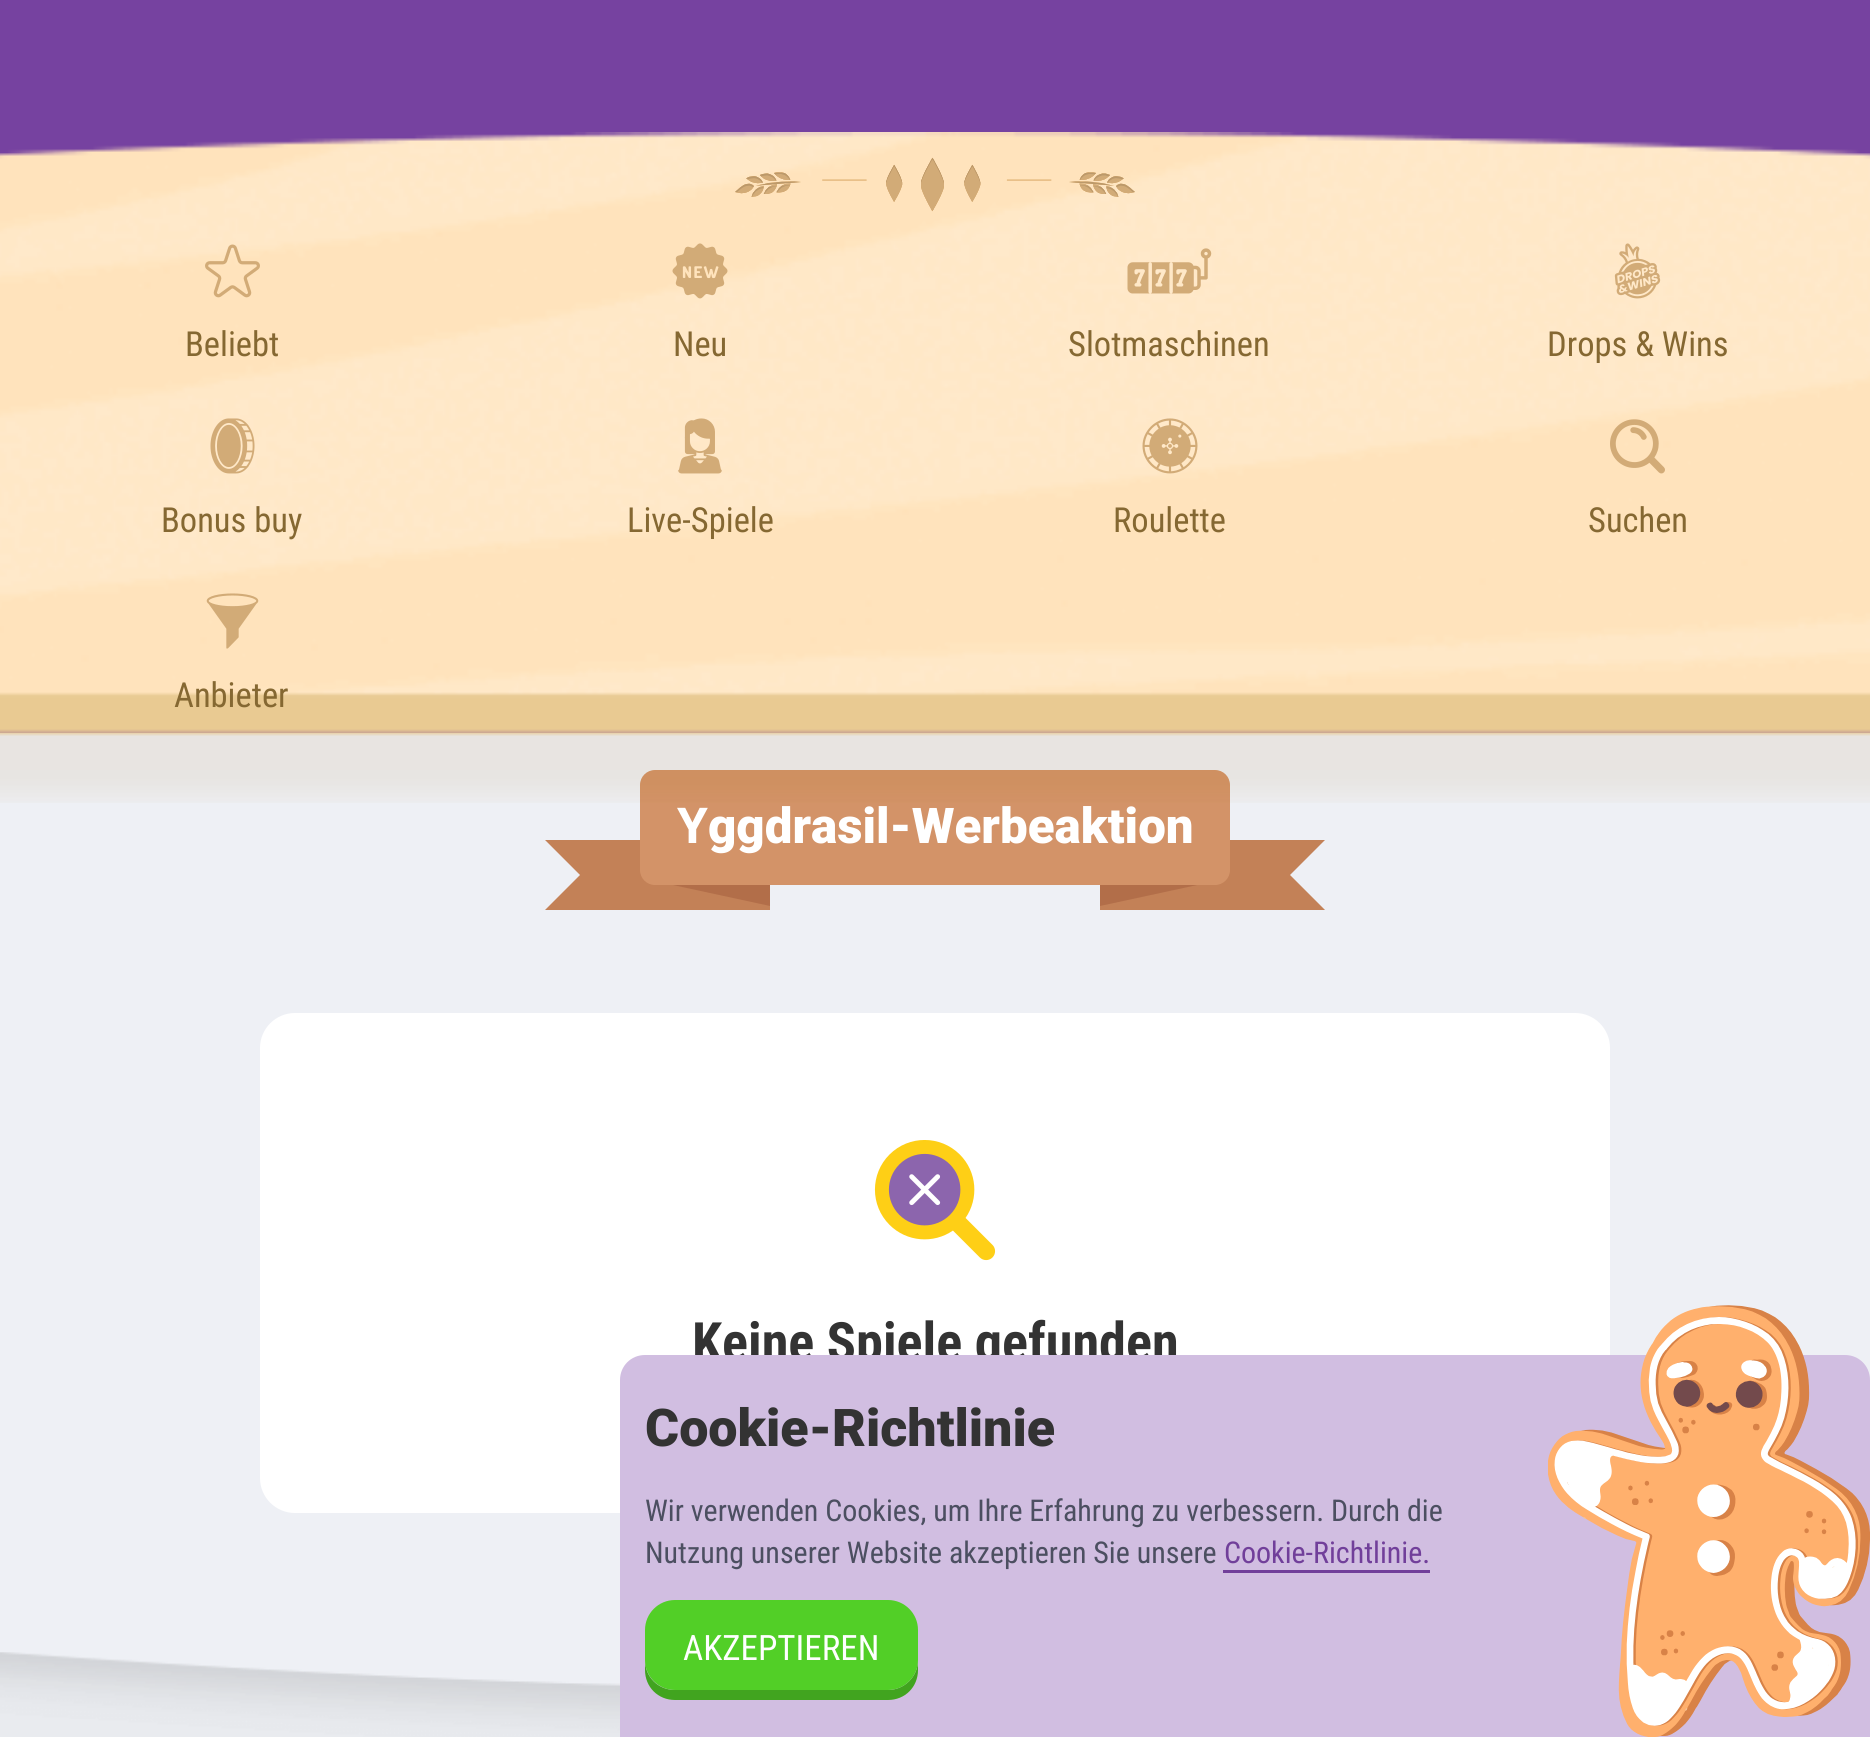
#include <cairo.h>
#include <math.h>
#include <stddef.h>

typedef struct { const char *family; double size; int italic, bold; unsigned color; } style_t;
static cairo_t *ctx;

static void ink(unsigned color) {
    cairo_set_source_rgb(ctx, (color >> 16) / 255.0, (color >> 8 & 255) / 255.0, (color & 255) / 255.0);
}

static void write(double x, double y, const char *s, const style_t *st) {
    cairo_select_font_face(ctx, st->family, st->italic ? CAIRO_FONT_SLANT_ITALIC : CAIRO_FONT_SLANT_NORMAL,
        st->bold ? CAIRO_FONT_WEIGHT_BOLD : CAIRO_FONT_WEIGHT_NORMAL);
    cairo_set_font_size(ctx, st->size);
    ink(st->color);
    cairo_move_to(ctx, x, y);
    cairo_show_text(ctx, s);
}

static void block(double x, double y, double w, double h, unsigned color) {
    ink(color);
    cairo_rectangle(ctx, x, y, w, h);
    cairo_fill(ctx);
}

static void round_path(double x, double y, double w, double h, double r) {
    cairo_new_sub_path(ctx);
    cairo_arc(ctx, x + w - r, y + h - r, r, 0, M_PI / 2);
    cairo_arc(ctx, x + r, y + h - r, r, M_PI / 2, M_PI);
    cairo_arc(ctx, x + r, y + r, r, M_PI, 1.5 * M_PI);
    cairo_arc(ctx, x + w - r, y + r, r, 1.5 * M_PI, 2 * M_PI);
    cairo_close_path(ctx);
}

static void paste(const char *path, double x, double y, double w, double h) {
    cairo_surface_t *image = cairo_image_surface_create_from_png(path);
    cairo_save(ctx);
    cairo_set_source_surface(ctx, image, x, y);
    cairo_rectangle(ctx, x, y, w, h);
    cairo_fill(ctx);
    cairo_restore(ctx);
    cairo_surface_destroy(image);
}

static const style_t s1 = {"Roboto Condensed", 34.5, 0, 0, 0x856832};
static const style_t s2 = {"Noto Sans", 49.25, 0, 1, 0xffffff};
static const style_t s3 = {"Roboto Black", 49.25, 0, 0, 0xffffff};
static const style_t s4 = {"Roboto Condensed", 54.25, 0, 1, 0x333333};
static const style_t s5 = {"Roboto Black", 52, 0, 0, 0x333333};
static const style_t s6 = {"Roboto Condensed", 30, 0, 0, 0x4c4f61};
static const style_t s7 = {"Roboto Condensed", 30, 0, 0, 0x713f9a};
static const style_t s8 = {"Roboto Condensed", 35, 0, 0, 0xffffff};

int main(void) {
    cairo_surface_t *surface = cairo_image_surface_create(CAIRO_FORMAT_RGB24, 1870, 1737);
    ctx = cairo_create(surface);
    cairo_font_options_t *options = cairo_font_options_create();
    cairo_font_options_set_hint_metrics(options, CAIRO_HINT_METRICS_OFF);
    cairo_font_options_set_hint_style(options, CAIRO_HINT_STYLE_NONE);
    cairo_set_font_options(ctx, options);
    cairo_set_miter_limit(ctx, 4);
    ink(0xeef0f5);
    cairo_paint(ctx);
    block(0, 0, 1870, 733, 0x7642a0);
    ink(0xc38157);
    cairo_new_path(ctx);
    cairo_move_to(ctx, 545, 840);
    cairo_line_to(ctx, 770, 840);
    cairo_line_to(ctx, 735, 875);
    cairo_line_to(ctx, 580, 875);
    cairo_close_path(ctx);
    cairo_fill(ctx);
    block(764, 904, 6, 6, 0xc38157);
    cairo_new_path(ctx);
    cairo_move_to(ctx, 770, 910);
    cairo_line_to(ctx, 545, 910);
    cairo_line_to(ctx, 580, 875);
    cairo_line_to(ctx, 735, 875);
    cairo_close_path(ctx);
    cairo_fill(ctx);
    ink(0xb26e49);
    cairo_new_path(ctx);
    cairo_move_to(ctx, 645, 777);
    cairo_line_to(ctx, 770, 803);
    cairo_line_to(ctx, 770, 906);
    cairo_line_to(ctx, 645, 879);
    cairo_close_path(ctx);
    cairo_fill(ctx);
    ink(0xc38157);
    cairo_new_path(ctx);
    cairo_move_to(ctx, 1100, 840);
    cairo_line_to(ctx, 1325, 840);
    cairo_line_to(ctx, 1290, 875);
    cairo_line_to(ctx, 1135, 875);
    cairo_close_path(ctx);
    cairo_fill(ctx);
    cairo_new_path(ctx);
    cairo_move_to(ctx, 1325, 910);
    cairo_line_to(ctx, 1100, 910);
    cairo_line_to(ctx, 1135, 875);
    cairo_line_to(ctx, 1290, 875);
    cairo_close_path(ctx);
    cairo_fill(ctx);
    block(1100, 898, 12, 12, 0xc38157);
    ink(0xb26e49);
    cairo_new_path(ctx);
    cairo_move_to(ctx, 1100, 803);
    cairo_line_to(ctx, 1225, 777);
    cairo_line_to(ctx, 1225, 879);
    cairo_line_to(ctx, 1100, 906);
    cairo_close_path(ctx);
    cairo_fill(ctx);
    ink(0xd39368);
    round_path(640, 770, 590, 115, 15);
    cairo_fill(ctx);
    paste("pic1.png", 0, 132, 1870, 671);
    paste("pic2.png", 735, 157, 400, 55);
    paste("pic3.png", 205, 244, 55, 54);
    write(185, 356, "Beliebt", &s1);
    paste("pic4.png", 672, 243, 56, 56);
    write(673, 356, "Neu", &s1);
    paste("pic5.png", 1127, 248, 85, 46);
    write(1068, 356, "Slotmaschinen", &s1);
    paste("pic6.png", 1614, 243, 47, 56);
    write(1547, 356, "Drops & Wins", &s1);
    paste("pic7.png", 210, 418, 45, 56);
    write(161, 532, "Bonus buy", &s1);
    paste("pic8.png", 678, 418, 44, 56);
    write(627, 532, "Live-Spiele", &s1);
    paste("pic9.png", 1142, 418, 56, 56);
    write(1113, 532, "Roulette", &s1);
    paste("pic10.png", 1610, 419, 55, 55);
    write(1588, 532, "Suchen", &s1);
    paste("pic11.png", 206, 593, 53, 56);
    write(174, 707, "Anbieter", &s1);
    write(677, 843, "Y", &s2);
    write(708, 843, "ggdrasil-Werbeaktion", &s3);
    round_path(260, 1013, 1350, 500, 35);
    cairo_fill(ctx);
    paste("pic12.png", 874, 1140, 122, 121);
    write(692, 1361, "Keine Spiele gefunden", &s4);
    paste("pic13.png", 0, 1652, 620, 85);
    ink(0xd1bee1);
    cairo_new_path(ctx);
    cairo_move_to(ctx, 645, 1355);
    cairo_line_to(ctx, 1845, 1355);
    cairo_curve_to(ctx, 1859, 1355, 1870, 1366, 1870, 1380);
    cairo_line_to(ctx, 1870, 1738);
    cairo_line_to(ctx, 620, 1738);
    cairo_line_to(ctx, 620, 1380);
    cairo_curve_to(ctx, 620, 1366, 631, 1355, 645, 1355);
    cairo_close_path(ctx);
    cairo_fill(ctx);
    write(645, 1446, "Cookie-Richtlinie", &s5);
    write(645, 1521, "Wir verwenden Cookies, um Ihre Erfahrung zu verbessern. Durch die", &s6);
    write(645, 1563, "Nutzung unserer Website akzeptieren Sie unsere", &s6);
    write(1224, 1563, "Cookie-Richtlinie.", &s7);
    block(1223, 1570, 207, 3, 0x713f9a);
    ink(0x41a41f);
    cairo_new_path(ctx);
    cairo_move_to(ctx, 645, 1660);
    cairo_line_to(ctx, 645, 1670);
    cairo_curve_to(ctx, 645, 1687, 658, 1700, 675, 1700);
    cairo_line_to(ctx, 888, 1700);
    cairo_curve_to(ctx, 905, 1700, 918, 1687, 918, 1670);
    cairo_line_to(ctx, 918, 1640);
    cairo_line_to(ctx, 918, 1635);
    cairo_line_to(ctx, 918, 1660);
    cairo_curve_to(ctx, 918, 1677, 904, 1690, 888, 1690);
    cairo_line_to(ctx, 675, 1690);
    cairo_curve_to(ctx, 658, 1690, 645, 1677, 645, 1660);
    cairo_close_path(ctx);
    cairo_fill(ctx);
    ink(0x52cf27);
    round_path(645, 1600, 273, 90, 30);
    cairo_fill(ctx);
    write(683, 1660, "AKZEPTIEREN", &s8);
    paste("pic14.png", 1548, 1305, 322, 432);
    cairo_surface_write_to_png(surface, "screenshot.png");
    cairo_font_options_destroy(options);
    cairo_destroy(ctx);
    cairo_surface_destroy(surface);
    return 0;
}
